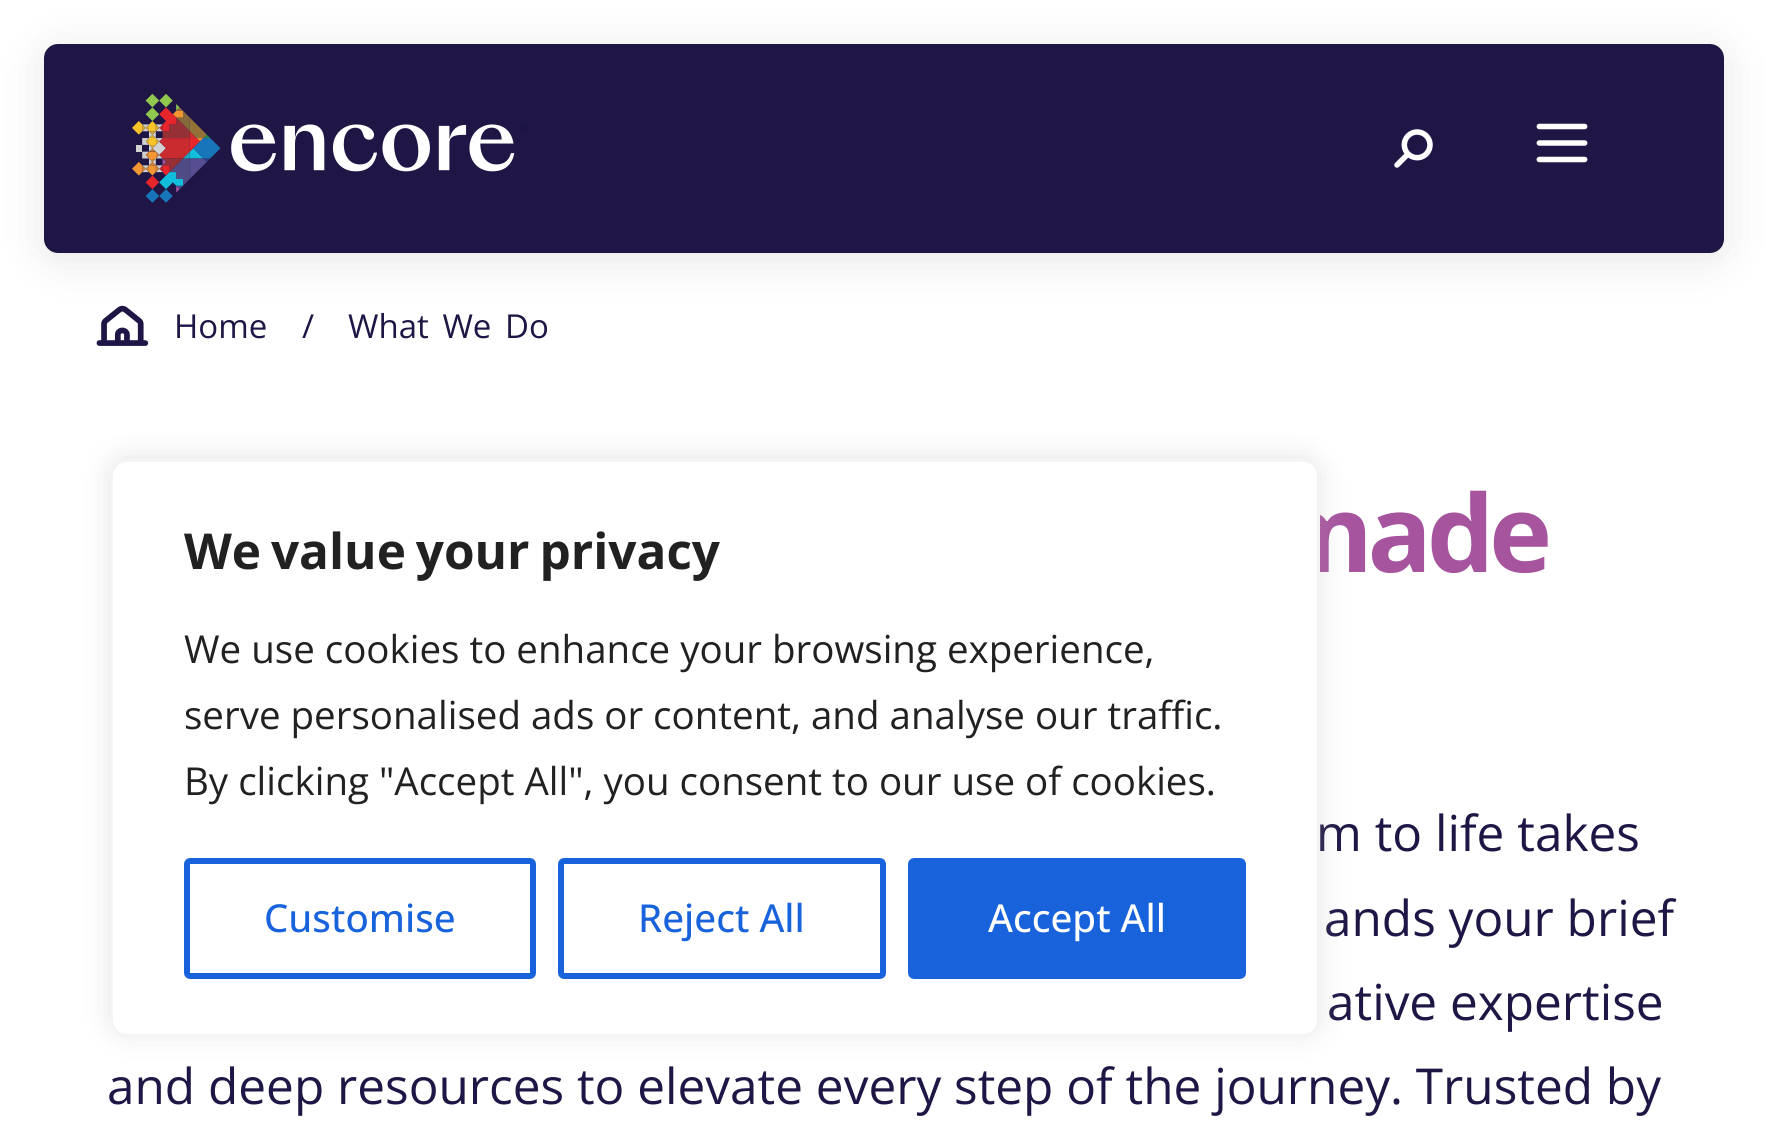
#include <cairo.h>
#include <math.h>
#include <stddef.h>

typedef struct { const char *family; double size; int italic, bold; unsigned color; } style_t;
static cairo_t *ctx;

static void ink(unsigned color) {
    cairo_set_source_rgb(ctx, (color >> 16) / 255.0, (color >> 8 & 255) / 255.0, (color & 255) / 255.0);
}

static void write(double x, double y, const char *s, const style_t *st) {
    cairo_select_font_face(ctx, st->family, st->italic ? CAIRO_FONT_SLANT_ITALIC : CAIRO_FONT_SLANT_NORMAL,
        st->bold ? CAIRO_FONT_WEIGHT_BOLD : CAIRO_FONT_WEIGHT_NORMAL);
    cairo_set_font_size(ctx, st->size);
    ink(st->color);
    cairo_move_to(ctx, x, y);
    cairo_show_text(ctx, s);
}

static void write_spaced(double x, double y, const char *s, double letter, double word) {
    cairo_move_to(ctx, x, y);
    while (*s) {
        char ch[5] = {0};
        int n = 0;
        do ch[n++] = *s++; while ((*s & 0xC0) == 0x80);
        cairo_show_text(ctx, ch);
        cairo_rel_move_to(ctx, letter + word * (*ch == ' '), 0);
    }
}

static void round_path(double x, double y, double w, double h, double r) {
    cairo_new_sub_path(ctx);
    cairo_arc(ctx, x + w - r, y + h - r, r, 0, M_PI / 2);
    cairo_arc(ctx, x + r, y + h - r, r, M_PI / 2, M_PI);
    cairo_arc(ctx, x + r, y + r, r, M_PI, 1.5 * M_PI);
    cairo_arc(ctx, x + w - r, y + r, r, 1.5 * M_PI, 2 * M_PI);
    cairo_close_path(ctx);
}

static void blur_box(double x, double y, double w, double h, double r, double blur, double alpha) {
    cairo_push_group_with_content(ctx, CAIRO_CONTENT_ALPHA);
    cairo_set_operator(ctx, CAIRO_OPERATOR_SOURCE);
    for (int i = 15; i >= -15 && fmin(w, h) + blur * i / 3 > 0; i -= 2) {
        double e = blur * i / 6;
        cairo_set_source_rgba(ctx, 0, 0, 0, alpha * erfc((i - 1) / 8.5) / 2);
        round_path(x - e, y - e, w + 2 * e, h + 2 * e, fmax(0, fmin(r + e + blur * .6, fmin(w, h) / 2 + e)));
        cairo_fill(ctx);
    }
    cairo_pattern_t *soft = cairo_pop_group(ctx);
    cairo_mask(ctx, soft);
    cairo_pattern_destroy(soft);
}

static void paste(const char *path, double x, double y, double w, double h) {
    cairo_surface_t *image = cairo_image_surface_create_from_png(path);
    cairo_save(ctx);
    cairo_set_source_surface(ctx, image, x, y);
    cairo_rectangle(ctx, x, y, w, h);
    cairo_fill(ctx);
    cairo_restore(ctx);
    cairo_surface_destroy(image);
}

static const style_t s1 = {"Open Sans", 33, 0, 0, 0x1f1646};
static const style_t s2 = {"Open Sans", 49.5, 0, 0, 0x1f1646};
static const style_t s3 = {"Open Sans", 38.5, 0, 0, 0x212121};
static const style_t s4 = {"Open Sans Medium", 38.5, 0, 0, 0x1863dc};
static const style_t s5 = {"Open Sans Medium", 38.5, 0, 0, 0xffffff};

int main(void) {
    cairo_surface_t *surface = cairo_image_surface_create(CAIRO_FORMAT_RGB24, 1766, 1146);
    ctx = cairo_create(surface);
    cairo_font_options_t *options = cairo_font_options_create();
    cairo_font_options_set_hint_metrics(options, CAIRO_HINT_METRICS_OFF);
    cairo_font_options_set_hint_style(options, CAIRO_HINT_STYLE_NONE);
    cairo_set_font_options(ctx, options);
    cairo_set_miter_limit(ctx, 4);
    ink(0xffffff);
    cairo_paint(ctx);
    paste("pic4.png", 96, 305, 53, 41);
    ink(0x000000);
    blur_box(44, 50, 1680, 209, 14, 22, 0.1);
    ink(0x1f1646);
    round_path(44, 44, 1680, 209, 14);
    cairo_fill(ctx);
    paste("pic1.png", 132, 94, 396, 109);
    paste("pic2.png", 1394, 129, 39, 39);
    paste("pic3.png", 1536, 123, 52, 40);
    write(174, 338, "Home", &s1);
    write(302, 338, "/", &s1);
    write_spaced(348, 338, "What We Do", 0, 5);
    cairo_select_font_face(ctx, "Open Sans", CAIRO_FONT_SLANT_NORMAL, CAIRO_FONT_WEIGHT_BOLD);
    cairo_set_font_size(ctx, 107);
    ink(0xa7549f);
    write_spaced(1268, 572, "made", -5.5, 0);
    write(1316, 851, "m to life takes", &s2);
    write(1324, 936, "ands your brief", &s2);
    write(1327, 1020, "ative expertise", &s2);
    write(107, 1104, "and deep resources to elevate every step of the journey. Trusted by", &s2);
    ink(0xacabab);
    blur_box(110, 457, 1210, 577, 17, 14, 0.3);
    ink(0xffffff);
    round_path(111.5, 460.5, 1207, 575, 15.5);
    cairo_fill_preserve(ctx);
    ink(0xf4f4f4);
    cairo_set_line_width(ctx, 3);
    cairo_stroke(ctx);
    cairo_select_font_face(ctx, "Open Sans", CAIRO_FONT_SLANT_NORMAL, CAIRO_FONT_WEIGHT_BOLD);
    ink(0x212121);
    write_spaced(184, 569, "We value your privacy", 0, -3);
    write(184, 663, "We use cookies to enhance your browsing experience,", &s3);
    write(184, 729, "serve personalised ads or content, and analyse our traffic.", &s3);
    write(184, 795, "By clicking \"Accept All\", you consent to our use of cookies.", &s3);
    round_path(187, 861, 346, 115, 3);
    ink(0x1863dc);
    cairo_set_line_width(ctx, 6);
    cairo_stroke(ctx);
    write(264, 932, "Customise", &s4);
    round_path(561, 861, 322, 115, 3);
    cairo_stroke(ctx);
    write(638, 932, "Reject All", &s4);
    round_path(911, 861, 332, 115, 3);
    cairo_fill_preserve(ctx);
    cairo_stroke(ctx);
    write(988, 932, "Accept All", &s5);
    cairo_surface_write_to_png(surface, "screenshot.png");
    cairo_font_options_destroy(options);
    cairo_destroy(ctx);
    cairo_surface_destroy(surface);
    return 0;
}
